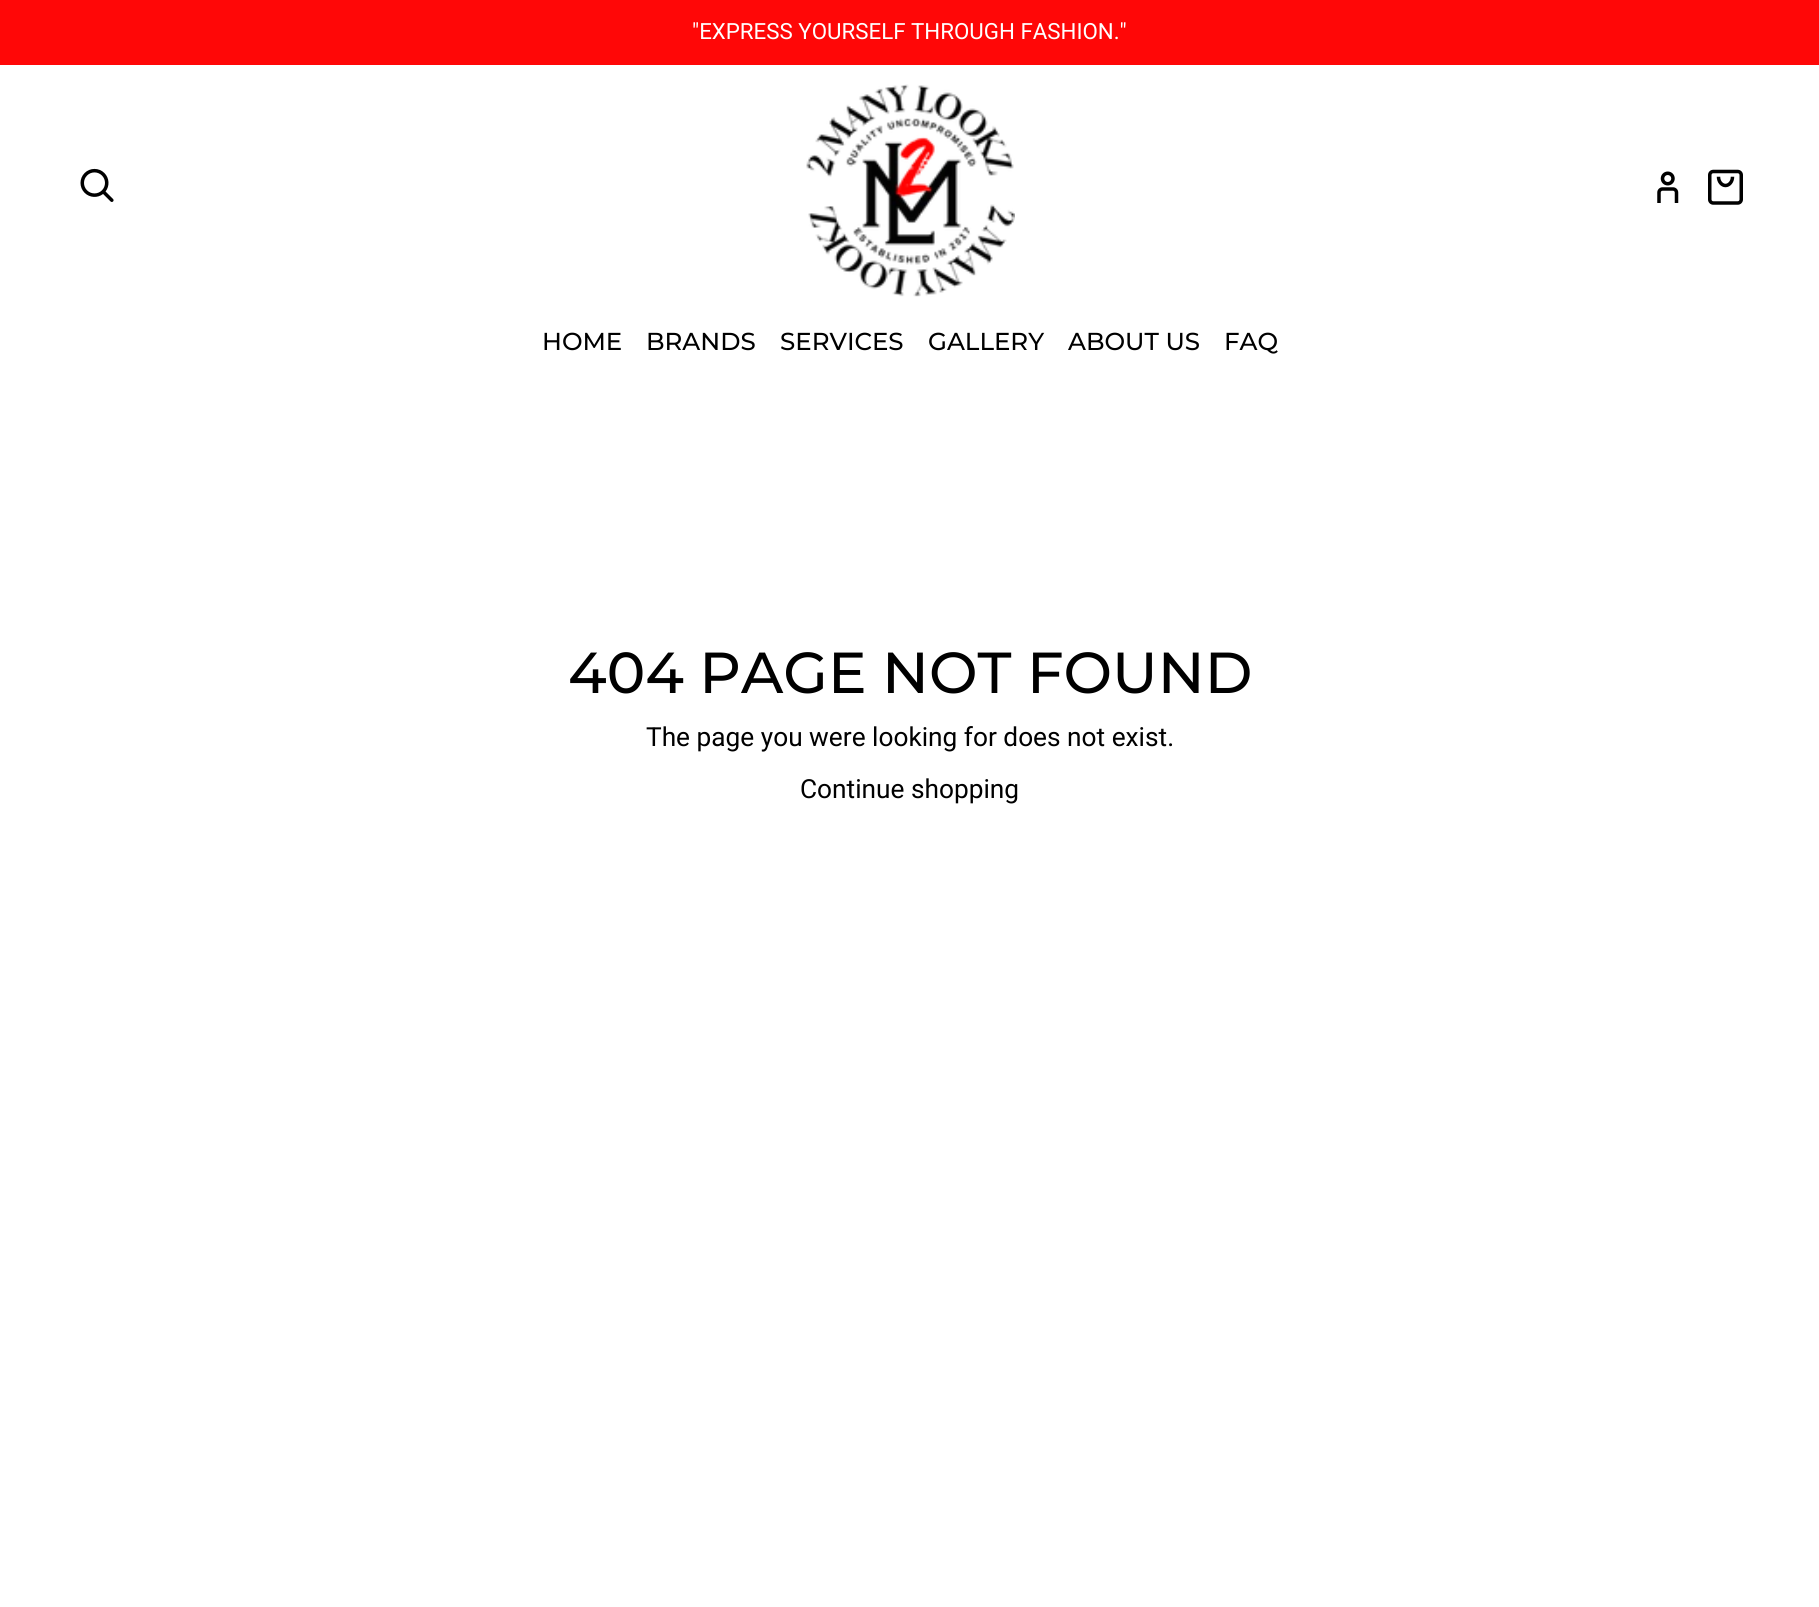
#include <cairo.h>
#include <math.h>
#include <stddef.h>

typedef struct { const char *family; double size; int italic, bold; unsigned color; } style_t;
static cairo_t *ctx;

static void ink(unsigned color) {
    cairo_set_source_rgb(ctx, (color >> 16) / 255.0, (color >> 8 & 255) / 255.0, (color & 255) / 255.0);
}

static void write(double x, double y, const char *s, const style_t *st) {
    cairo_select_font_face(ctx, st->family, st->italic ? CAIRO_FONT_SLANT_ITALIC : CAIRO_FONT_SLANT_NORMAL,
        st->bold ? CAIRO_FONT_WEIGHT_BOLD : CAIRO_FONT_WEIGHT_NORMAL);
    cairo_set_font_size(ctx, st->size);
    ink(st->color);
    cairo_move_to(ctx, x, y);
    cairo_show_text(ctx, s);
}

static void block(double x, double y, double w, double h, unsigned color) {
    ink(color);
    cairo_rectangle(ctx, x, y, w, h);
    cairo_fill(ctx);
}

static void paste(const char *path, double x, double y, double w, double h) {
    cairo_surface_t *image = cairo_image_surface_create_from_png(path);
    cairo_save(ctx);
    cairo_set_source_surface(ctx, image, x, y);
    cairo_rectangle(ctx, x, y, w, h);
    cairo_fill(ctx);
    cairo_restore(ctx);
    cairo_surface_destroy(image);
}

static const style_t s1 = {"Roboto", 22.3, 0, 0, 0xffffff};
static const style_t s2 = {"Montserrat Medium", 24.5, 0, 0, 0x000000};
static const style_t s3 = {"Montserrat Medium", 57.75, 0, 0, 0x000000};
static const style_t s4 = {"Roboto", 26.25, 0, 0, 0x000000};

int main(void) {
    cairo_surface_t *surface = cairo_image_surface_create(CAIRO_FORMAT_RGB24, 1819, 1607);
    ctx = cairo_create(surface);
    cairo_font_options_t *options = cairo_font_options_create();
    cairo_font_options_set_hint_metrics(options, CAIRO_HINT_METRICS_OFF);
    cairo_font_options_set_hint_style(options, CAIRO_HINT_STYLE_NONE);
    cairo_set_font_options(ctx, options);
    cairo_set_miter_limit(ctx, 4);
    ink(0xffffff);
    cairo_paint(ctx);
    block(0, 0, 1819, 65, 0xff0707);
    write(692, 39, "\"EXPRESS YOURSELF THROUGH FASHION.\"", &s1);
    paste("pic1.png", 80, 168, 34, 34);
    paste("pic2.png", 806, 84, 209, 213);
    paste("pic3.png", 1657, 171, 22, 32);
    paste("pic4.png", 1708, 169, 35, 36);
    write(542, 350, "HOME", &s2);
    write(646, 350, "BRANDS", &s2);
    write(780, 350, "SERVICES", &s2);
    write(928, 350, "GALLERY", &s2);
    write(1068, 350, "ABOUT US", &s2);
    write(1224, 350, "FAQ", &s2);
    write(568, 693, "404 PAGE NOT FOUND", &s3);
    write(646, 746, "The page you were looking for does not exist.", &s4);
    write(800, 798, "Continue shopping", &s4);
    cairo_surface_write_to_png(surface, "screenshot.png");
    cairo_font_options_destroy(options);
    cairo_destroy(ctx);
    cairo_surface_destroy(surface);
    return 0;
}
